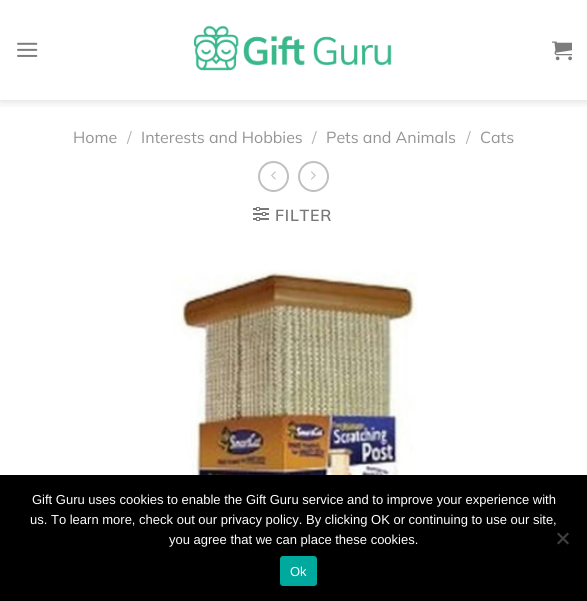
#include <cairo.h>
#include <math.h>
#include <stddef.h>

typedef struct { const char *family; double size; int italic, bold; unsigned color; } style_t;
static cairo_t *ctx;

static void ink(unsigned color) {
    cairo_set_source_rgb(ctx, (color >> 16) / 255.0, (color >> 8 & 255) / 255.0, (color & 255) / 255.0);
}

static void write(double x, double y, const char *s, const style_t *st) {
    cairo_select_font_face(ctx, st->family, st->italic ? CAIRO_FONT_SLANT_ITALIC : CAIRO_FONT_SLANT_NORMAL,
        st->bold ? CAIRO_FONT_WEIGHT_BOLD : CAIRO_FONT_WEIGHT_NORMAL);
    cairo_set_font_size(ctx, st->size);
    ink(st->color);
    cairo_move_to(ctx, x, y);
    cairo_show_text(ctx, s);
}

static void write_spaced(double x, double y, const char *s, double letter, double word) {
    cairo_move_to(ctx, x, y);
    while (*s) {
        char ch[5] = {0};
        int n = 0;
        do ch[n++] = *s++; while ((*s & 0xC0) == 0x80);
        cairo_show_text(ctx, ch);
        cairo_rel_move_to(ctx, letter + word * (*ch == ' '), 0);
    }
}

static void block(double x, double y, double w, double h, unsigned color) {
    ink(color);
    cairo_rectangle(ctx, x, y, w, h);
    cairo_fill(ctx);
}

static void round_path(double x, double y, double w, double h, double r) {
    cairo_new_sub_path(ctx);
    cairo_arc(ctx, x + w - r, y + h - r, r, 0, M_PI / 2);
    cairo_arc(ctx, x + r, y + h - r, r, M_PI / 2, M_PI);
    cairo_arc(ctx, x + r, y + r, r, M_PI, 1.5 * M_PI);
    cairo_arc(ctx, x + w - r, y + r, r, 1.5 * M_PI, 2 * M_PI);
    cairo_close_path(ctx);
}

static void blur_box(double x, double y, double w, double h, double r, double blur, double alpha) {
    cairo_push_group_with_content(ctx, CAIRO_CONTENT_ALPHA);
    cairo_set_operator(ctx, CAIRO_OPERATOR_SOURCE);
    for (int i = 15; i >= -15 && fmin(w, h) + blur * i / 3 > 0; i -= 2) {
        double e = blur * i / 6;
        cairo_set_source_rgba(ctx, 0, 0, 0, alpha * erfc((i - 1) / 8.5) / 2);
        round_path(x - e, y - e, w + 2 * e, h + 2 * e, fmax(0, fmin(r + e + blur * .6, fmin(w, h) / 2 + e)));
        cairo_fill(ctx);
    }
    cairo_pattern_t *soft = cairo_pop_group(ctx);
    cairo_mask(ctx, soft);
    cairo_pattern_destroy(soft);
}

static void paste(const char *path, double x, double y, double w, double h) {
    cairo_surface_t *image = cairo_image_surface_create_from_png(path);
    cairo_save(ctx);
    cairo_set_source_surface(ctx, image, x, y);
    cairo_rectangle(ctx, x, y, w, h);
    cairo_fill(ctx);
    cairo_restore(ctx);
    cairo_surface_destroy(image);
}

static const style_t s1 = {"Mulish", 16, 0, 0, 0x949494};
static const style_t s2 = {"Mulish", 16, 0, 0, 0xb2b2b2};
static const style_t s3 = {"Liberation Sans", 13, 0, 0, 0xffffff};

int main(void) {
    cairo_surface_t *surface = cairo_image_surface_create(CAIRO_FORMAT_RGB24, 587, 601);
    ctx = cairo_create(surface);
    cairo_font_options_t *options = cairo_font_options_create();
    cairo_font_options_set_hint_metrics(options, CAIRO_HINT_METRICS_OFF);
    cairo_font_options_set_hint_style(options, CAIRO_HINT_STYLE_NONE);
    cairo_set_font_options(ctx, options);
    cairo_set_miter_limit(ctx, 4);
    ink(0xffffff);
    cairo_paint(ctx);
    cairo_save(ctx);
    cairo_rectangle(ctx, 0, 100, 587, 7);
    cairo_clip(ctx);
    ink(0x000000);
    blur_box(1, 1, 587, 100, 0, 5, 0.15);
    cairo_restore(ctx);
    paste("pic1.png", 17, 42, 21, 15);
    paste("pic2.png", 194, 25, 198, 46);
    paste("pic3.png", 552, 41, 20, 20);
    write(73, 143, "Home", &s1);
    write(127, 143, "/", &s2);
    write(141, 143, "Interests and Hobbies", &s1);
    write(312, 143, "/", &s2);
    write(326, 143, "Pets and Animals", &s1);
    write(466, 143, "/", &s2);
    write(480, 143, "Cats", &s1);
    cairo_new_path(ctx);
    cairo_arc(ctx, 273.5, 176.5, 14.5, 0, 2 * M_PI);
    ink(0xc0c0c0);
    cairo_stroke(ctx);
    paste("pic4.png", 271, 171, 5, 9);
    cairo_arc(ctx, 313.5, 176.5, 14.5, 0, 2 * M_PI);
    cairo_stroke(ctx);
    paste("pic5.png", 311, 171, 5, 9);
    paste("pic6.png", 253, 207, 16, 14);
    cairo_select_font_face(ctx, "Mulish SemiBold", CAIRO_FONT_SLANT_NORMAL, CAIRO_FONT_WEIGHT_NORMAL);
    ink(0x777777);
    write_spaced(275, 221, "FILTER", 0.75, 0);
    paste("pic7.png", 172, 270, 245, 205);
    block(0, 475, 587, 126, 0x000000);
    write(32, 504, "Gift Guru uses cookies to enable the Gift Guru service and to improve your experience with", &s3);
    write(30, 524, "us. To learn more, check out our privacy policy. By clicking OK or continuing to use our site,", &s3);
    write(169, 544, "you agree that we can place these cookies.", &s3);
    ink(0x404040);
    cairo_new_path(ctx);
    cairo_move_to(ctx, 567.5, 532.5);
    cairo_line_to(ctx, 569, 534);
    cairo_line_to(ctx, 558.5, 544.5);
    cairo_line_to(ctx, 557, 543);
    cairo_close_path(ctx);
    cairo_fill(ctx);
    cairo_new_path(ctx);
    cairo_move_to(ctx, 557, 534);
    cairo_line_to(ctx, 558.5, 532.5);
    cairo_line_to(ctx, 569, 543);
    cairo_line_to(ctx, 567.5, 544.5);
    cairo_close_path(ctx);
    cairo_fill(ctx);
    ink(0x00a99d);
    round_path(280, 556, 37, 30, 3);
    cairo_fill(ctx);
    write(290, 576, "Ok", &s3);
    cairo_surface_write_to_png(surface, "screenshot.png");
    cairo_font_options_destroy(options);
    cairo_destroy(ctx);
    cairo_surface_destroy(surface);
    return 0;
}
